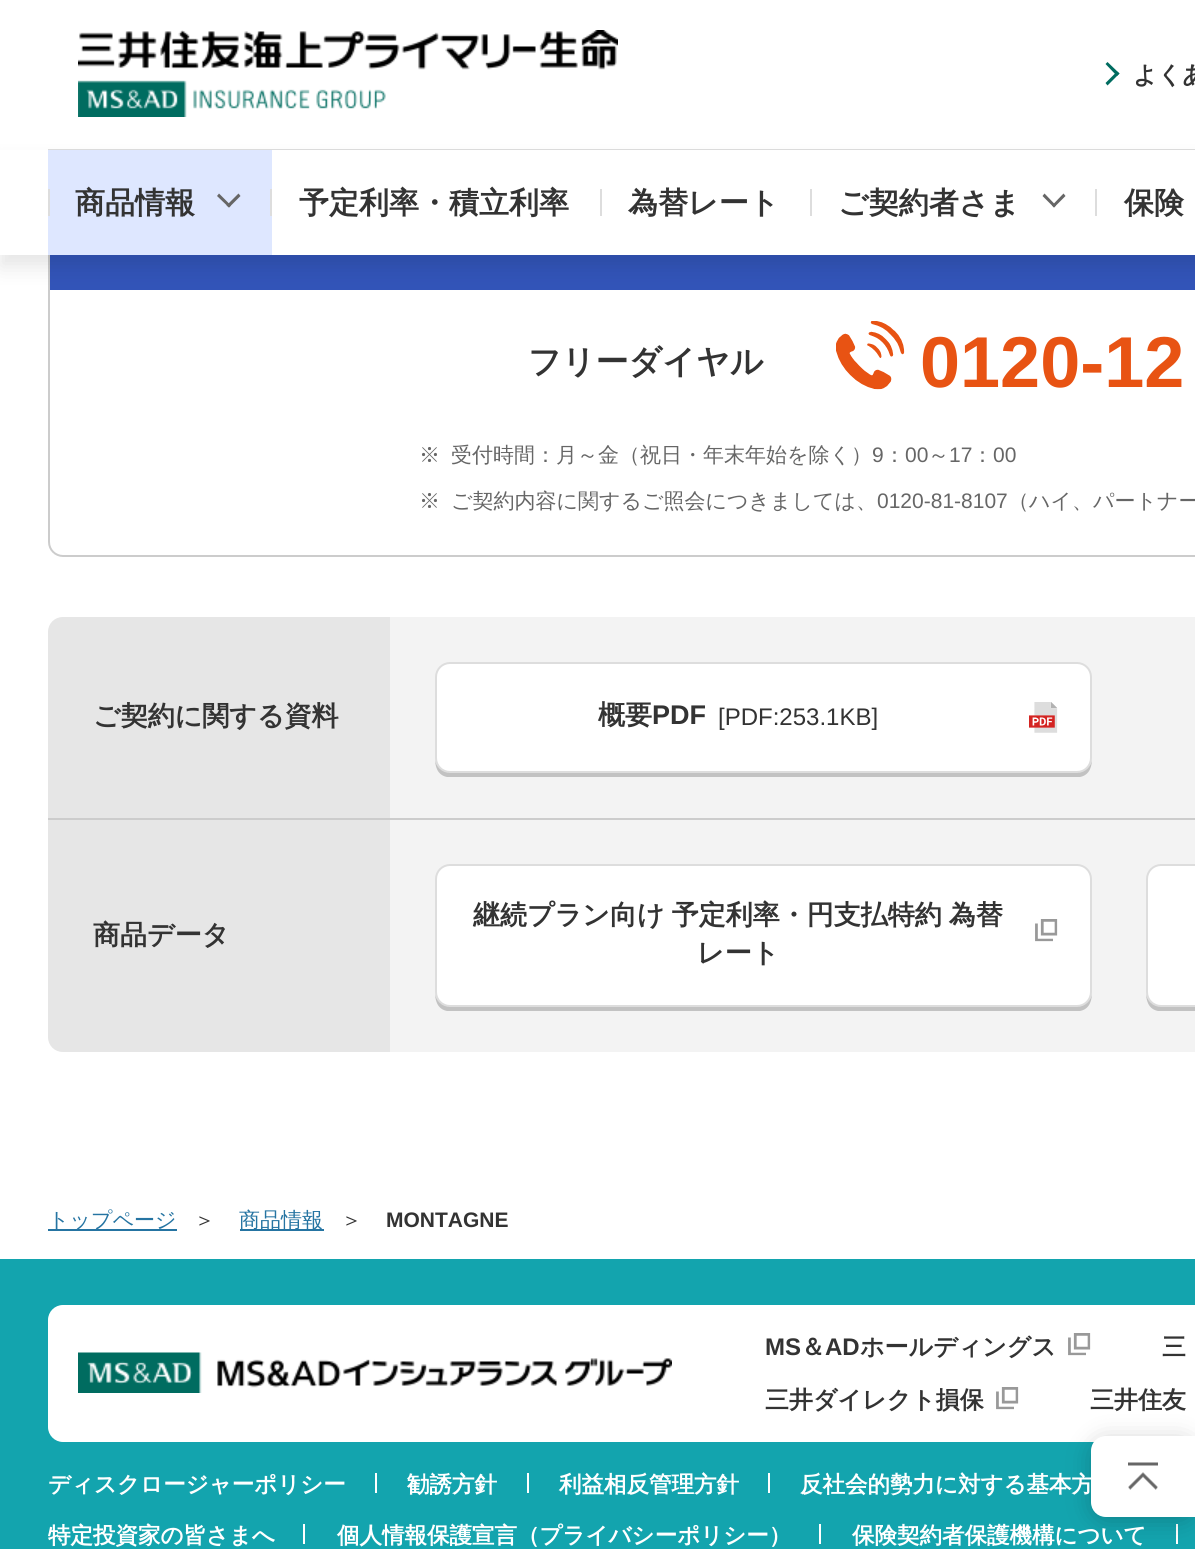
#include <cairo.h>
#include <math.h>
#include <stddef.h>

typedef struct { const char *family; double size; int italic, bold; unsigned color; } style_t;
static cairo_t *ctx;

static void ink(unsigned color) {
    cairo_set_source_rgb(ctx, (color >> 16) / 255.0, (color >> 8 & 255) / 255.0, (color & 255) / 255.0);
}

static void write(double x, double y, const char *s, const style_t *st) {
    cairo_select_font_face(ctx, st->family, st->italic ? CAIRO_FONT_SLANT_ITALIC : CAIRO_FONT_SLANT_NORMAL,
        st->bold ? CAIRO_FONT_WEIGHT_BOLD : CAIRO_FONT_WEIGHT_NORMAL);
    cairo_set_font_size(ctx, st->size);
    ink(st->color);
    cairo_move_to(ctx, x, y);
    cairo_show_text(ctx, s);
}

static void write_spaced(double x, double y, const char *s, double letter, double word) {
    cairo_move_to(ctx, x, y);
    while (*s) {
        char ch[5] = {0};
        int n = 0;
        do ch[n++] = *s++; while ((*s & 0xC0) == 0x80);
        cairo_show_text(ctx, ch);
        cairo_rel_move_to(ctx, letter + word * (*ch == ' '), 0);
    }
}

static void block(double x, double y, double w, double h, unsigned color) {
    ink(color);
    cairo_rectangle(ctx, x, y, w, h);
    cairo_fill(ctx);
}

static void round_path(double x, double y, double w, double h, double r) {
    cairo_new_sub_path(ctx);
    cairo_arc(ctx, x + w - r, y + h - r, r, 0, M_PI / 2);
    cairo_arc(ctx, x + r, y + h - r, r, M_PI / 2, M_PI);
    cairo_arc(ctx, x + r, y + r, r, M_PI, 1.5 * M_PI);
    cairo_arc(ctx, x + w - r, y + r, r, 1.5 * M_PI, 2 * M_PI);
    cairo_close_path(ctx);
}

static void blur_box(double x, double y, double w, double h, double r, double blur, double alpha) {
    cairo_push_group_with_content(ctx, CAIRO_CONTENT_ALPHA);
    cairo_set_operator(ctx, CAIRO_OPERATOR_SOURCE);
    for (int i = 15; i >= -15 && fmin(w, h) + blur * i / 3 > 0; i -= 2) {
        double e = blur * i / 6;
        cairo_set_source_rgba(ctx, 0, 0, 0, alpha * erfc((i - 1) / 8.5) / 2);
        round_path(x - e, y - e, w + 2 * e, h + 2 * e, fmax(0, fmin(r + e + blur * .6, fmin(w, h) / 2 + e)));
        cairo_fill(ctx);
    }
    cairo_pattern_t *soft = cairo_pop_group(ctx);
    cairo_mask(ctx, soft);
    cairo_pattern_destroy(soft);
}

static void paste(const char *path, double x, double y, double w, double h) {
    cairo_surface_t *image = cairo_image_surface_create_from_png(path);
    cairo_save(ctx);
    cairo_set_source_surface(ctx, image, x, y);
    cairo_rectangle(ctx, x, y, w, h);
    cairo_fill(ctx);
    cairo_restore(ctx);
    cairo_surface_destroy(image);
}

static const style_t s1 = {"WenQuanYi Zen Hei", 24, 0, 1, 0x333333};
static const style_t s2 = {"WenQuanYi Zen Hei", 30, 0, 1, 0x333333};
static const style_t s3 = {"WenQuanYi Zen Hei", 33, 0, 1, 0x333333};
static const style_t s4 = {"Liberation Sans", 72, 0, 1, 0xe85313};
static const style_t s5 = {"WenQuanYi Zen Hei Medium", 21, 0, 0, 0x666666};
static const style_t s6 = {"Liberation Sans", 21, 0, 0, 0x666666};
static const style_t s7 = {"WenQuanYi Zen Hei", 27, 0, 1, 0x333333};
static const style_t s8 = {"Liberation Sans", 27, 0, 1, 0x333333};
static const style_t s9 = {"Liberation Sans", 24, 0, 0, 0x333333};
static const style_t s10 = {"WenQuanYi Zen Hei Medium", 21, 0, 0, 0x2574a2};
static const style_t s11 = {"WenQuanYi Zen Hei Medium", 21, 0, 0, 0x333333};
static const style_t s12 = {"Liberation Sans", 21, 0, 1, 0x333333};
static const style_t s13 = {"Liberation Sans", 24, 0, 1, 0x333333};
static const style_t s14 = {"WenQuanYi Zen Hei", 22.5, 0, 1, 0xffffff};

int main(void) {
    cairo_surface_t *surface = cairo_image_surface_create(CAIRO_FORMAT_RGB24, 1195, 1549);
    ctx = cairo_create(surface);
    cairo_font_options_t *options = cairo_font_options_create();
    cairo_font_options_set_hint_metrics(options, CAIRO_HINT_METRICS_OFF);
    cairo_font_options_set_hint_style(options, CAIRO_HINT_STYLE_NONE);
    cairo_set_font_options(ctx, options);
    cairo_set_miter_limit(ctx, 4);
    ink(0xffffff);
    cairo_paint(ctx);
    block(48, 149, 1147, 1, 0xdddddd);
    paste("pic1.png", 78, 30, 540, 87);
    ink(0x006c60);
    cairo_new_path(ctx);
    cairo_move_to(ctx, 1107.5, 62);
    cairo_line_to(ctx, 1119.5, 73.5);
    cairo_line_to(ctx, 1117, 76);
    cairo_line_to(ctx, 1105.5, 64);
    cairo_close_path(ctx);
    cairo_fill(ctx);
    cairo_new_path(ctx);
    cairo_move_to(ctx, 1117, 71.5);
    cairo_line_to(ctx, 1119.5, 73.5);
    cairo_line_to(ctx, 1107.5, 85.5);
    cairo_line_to(ctx, 1105.5, 83);
    cairo_close_path(ctx);
    cairo_fill(ctx);
    write(1133, 83, "よくあ", &s1);
    round_path(49, 181, 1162, 375, 14);
    ink(0xcccccc);
    cairo_stroke(ctx);
    block(50, 255, 1145, 35, 0x3254b8);
    ink(0x000000);
    blur_box(0, 162, 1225, 105, 0, 10, 0.1);
    block(0, 150, 1195, 105, 0xffffff);
    block(48, 150, 224, 105, 0xdee7ff);
    block(48, 189, 2, 27, 0xdddddd);
    write(75, 213, "商品情報", &s2);
    ink(0x666666);
    cairo_new_path(ctx);
    cairo_move_to(ctx, 240.5, 196);
    cairo_line_to(ctx, 229, 207.5);
    cairo_line_to(ctx, 226.5, 205.5);
    cairo_line_to(ctx, 238.5, 193.5);
    cairo_close_path(ctx);
    cairo_fill(ctx);
    cairo_new_path(ctx);
    cairo_move_to(ctx, 231, 205.5);
    cairo_line_to(ctx, 229, 207.5);
    cairo_line_to(ctx, 217, 196);
    cairo_line_to(ctx, 219, 193.5);
    cairo_close_path(ctx);
    cairo_fill(ctx);
    block(270, 189, 2, 27, 0xdddddd);
    write(299, 213, "予定利率・積立利率", &s2);
    block(600, 189, 2, 27, 0xdddddd);
    write(628, 213, "為替レート", &s2);
    block(810, 189, 2, 27, 0xdddddd);
    write(838, 213, "ご契約者さま", &s2);
    ink(0x666666);
    cairo_new_path(ctx);
    cairo_move_to(ctx, 1065.5, 196);
    cairo_line_to(ctx, 1054, 207.5);
    cairo_line_to(ctx, 1052, 205.5);
    cairo_line_to(ctx, 1063.5, 193.5);
    cairo_close_path(ctx);
    cairo_fill(ctx);
    cairo_new_path(ctx);
    cairo_move_to(ctx, 1056, 205.5);
    cairo_line_to(ctx, 1054, 207.5);
    cairo_line_to(ctx, 1042.5, 196);
    cairo_line_to(ctx, 1044.5, 193.5);
    cairo_close_path(ctx);
    cairo_fill(ctx);
    block(1095, 189, 2, 27, 0xdddddd);
    write(1124, 213, "保険", &s2);
    write(528, 373, "フリーダイヤル", &s3);
    paste("pic2.png", 836, 321, 69, 69);
    write(920, 387, "0120-12", &s4);
    write(419, 462, "※", &s5);
    write(451, 462, "受付時間：月～金（祝日・年末年始を除く）", &s5);
    write(872, 462, "9", &s6);
    write(884, 462, "：", &s5);
    write(905, 462, "00", &s6);
    write(928, 462, "～", &s5);
    write(949, 462, "17", &s6);
    write(972, 462, "：", &s5);
    write(993, 462, "00", &s6);
    write(419, 508, "※", &s5);
    write(451, 508, "ご契約内容に関するご照会につきましては、", &s5);
    write(877, 508, "0120-81-8107", &s6);
    write(1008, 508, "（ハイ、パートナー", &s5);
    ink(0xe6e6e6);
    cairo_new_path(ctx);
    cairo_move_to(ctx, 63, 617);
    cairo_line_to(ctx, 390, 617);
    cairo_line_to(ctx, 390, 818);
    cairo_line_to(ctx, 48, 818);
    cairo_line_to(ctx, 48, 632);
    cairo_curve_to(ctx, 48, 623.5, 54.5, 617, 63, 617);
    cairo_close_path(ctx);
    cairo_fill(ctx);
    write(93, 725, "ご契約に関する資料", &s7);
    block(390, 617, 805, 201, 0xf3f3f3);
    ink(0xe6e6e6);
    cairo_new_path(ctx);
    cairo_move_to(ctx, 48, 818);
    cairo_line_to(ctx, 390, 818);
    cairo_line_to(ctx, 390, 1052);
    cairo_line_to(ctx, 63, 1052);
    cairo_curve_to(ctx, 54.5, 1052, 48, 1045.5, 48, 1037);
    cairo_close_path(ctx);
    cairo_fill(ctx);
    block(48, 818, 1147, 2, 0xcccccc);
    ink(0xc2c2c2);
    cairo_new_path(ctx);
    cairo_move_to(ctx, 435, 758);
    cairo_curve_to(ctx, 435, 766, 437, 775, 447, 777);
    cairo_line_to(ctx, 1080, 777);
    cairo_curve_to(ctx, 1090, 775, 1092, 766, 1092, 758);
    cairo_curve_to(ctx, 1092, 766, 1085, 772, 1077, 772);
    cairo_line_to(ctx, 450, 772);
    cairo_curve_to(ctx, 442, 772, 435, 766, 435, 758);
    cairo_close_path(ctx);
    cairo_fill(ctx);
    ink(0xffffff);
    round_path(436, 663, 655, 109, 14);
    cairo_fill_preserve(ctx);
    ink(0xdddddd);
    cairo_stroke(ctx);
    write(598, 724, "概要", &s7);
    write(652, 724, "PDF", &s8);
    write(718, 725, "[PDF:253.1KB]", &s9);
    paste("pic3.png", 1029, 702, 29, 31);
    write(93, 944, "商品データ", &s7);
    block(390, 820, 805, 232, 0xf3f3f3);
    ink(0xc2c2c2);
    cairo_new_path(ctx);
    cairo_move_to(ctx, 435, 992);
    cairo_curve_to(ctx, 435, 1000, 437, 1009, 447, 1011);
    cairo_line_to(ctx, 1080, 1011);
    cairo_curve_to(ctx, 1090, 1009, 1092, 1000, 1092, 992);
    cairo_curve_to(ctx, 1092, 1000, 1085, 1006, 1077, 1006);
    cairo_line_to(ctx, 450, 1006);
    cairo_curve_to(ctx, 442, 1006, 435, 1000, 435, 992);
    cairo_close_path(ctx);
    cairo_fill(ctx);
    ink(0xffffff);
    round_path(436, 865, 655, 141, 14);
    cairo_fill_preserve(ctx);
    ink(0xdddddd);
    cairo_stroke(ctx);
    ink(0x333333);
    write_spaced(473, 924, "継続プラン向け 予定利率・円支払特約 為替", 0, -1);
    write(697, 962, "レート", &s7);
    paste("pic4.png", 1035, 919, 23, 23);
    ink(0xc2c2c2);
    cairo_new_path(ctx);
    cairo_move_to(ctx, 1146, 992);
    cairo_curve_to(ctx, 1146, 1000, 1148, 1009, 1158, 1011);
    cairo_line_to(ctx, 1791, 1011);
    cairo_curve_to(ctx, 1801, 1009, 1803, 1000, 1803, 992);
    cairo_curve_to(ctx, 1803, 1000, 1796, 1006, 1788, 1006);
    cairo_line_to(ctx, 1161, 1006);
    cairo_curve_to(ctx, 1153, 1006, 1146, 1000, 1146, 992);
    cairo_close_path(ctx);
    cairo_fill(ctx);
    ink(0xffffff);
    round_path(1147, 865, 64, 141, 14);
    cairo_fill_preserve(ctx);
    ink(0xdddddd);
    cairo_stroke(ctx);
    block(48, 1229, 129, 2, 0x2574a2);
    write(48, 1227, "トップページ", &s10);
    write(194, 1227, "＞", &s11);
    block(240, 1229, 84, 2, 0x2574a2);
    write(239, 1227, "商品情報", &s10);
    write(341, 1227, "＞", &s11);
    write(386, 1227, "MONTAGNE", &s12);
    block(0, 1259, 1195, 290, 0x13a4ae);
    ink(0xffffff);
    round_path(48, 1305, 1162, 137, 15);
    cairo_fill(ctx);
    paste("pic5.png", 78, 1352, 594, 41);
    write(765, 1355, "MS", &s13);
    write(801, 1355, "＆", &s1);
    write(825, 1355, "AD", &s13);
    write(860, 1355, "ホールディングス", &s1);
    paste("pic4.png", 1068, 1333, 23, 23);
    write(1162, 1355, "三", &s1);
    write(765, 1408, "三井ダイレクト損保", &s1);
    paste("pic4.png", 996, 1387, 23, 23);
    write(1090, 1408, "三井住友", &s1);
    block(1176, 1524, 2, 20, 0xffffff);
    ink(0x000000);
    blur_box(1091, 1440, 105, 81, 15, 12, 0.2);
    ink(0xffffff);
    cairo_new_path(ctx);
    cairo_move_to(ctx, 1106, 1436);
    cairo_line_to(ctx, 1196, 1436);
    cairo_line_to(ctx, 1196, 1517);
    cairo_line_to(ctx, 1106, 1517);
    cairo_curve_to(ctx, 1097.5, 1517, 1091, 1510.5, 1091, 1502);
    cairo_line_to(ctx, 1091, 1451);
    cairo_curve_to(ctx, 1091, 1442.5, 1097.5, 1436, 1106, 1436);
    cairo_close_path(ctx);
    cairo_fill(ctx);
    paste("pic6.png", 1128, 1462, 30, 28);
    write(48, 1492, "ディスクロージャーポリシー", &s14);
    block(375, 1473, 2, 20, 0xffffff);
    write(407, 1492, "勧誘方針", &s14);
    block(527, 1473, 2, 20, 0xffffff);
    write(559, 1492, "利益相反管理方針", &s14);
    block(768, 1473, 2, 20, 0xffffff);
    write(800, 1492, "反社会的勢力に対する基本方", &s14);
    write(48, 1543, "特定投資家の皆さまへ", &s14);
    block(303, 1524, 2, 20, 0xffffff);
    write(337, 1543, "個人情報保護宣言（プライバシーポリシー）", &s14);
    block(819, 1524, 2, 20, 0xffffff);
    write(852, 1543, "保険契約者保護機構について", &s14);
    cairo_surface_write_to_png(surface, "screenshot.png");
    cairo_font_options_destroy(options);
    cairo_destroy(ctx);
    cairo_surface_destroy(surface);
    return 0;
}
